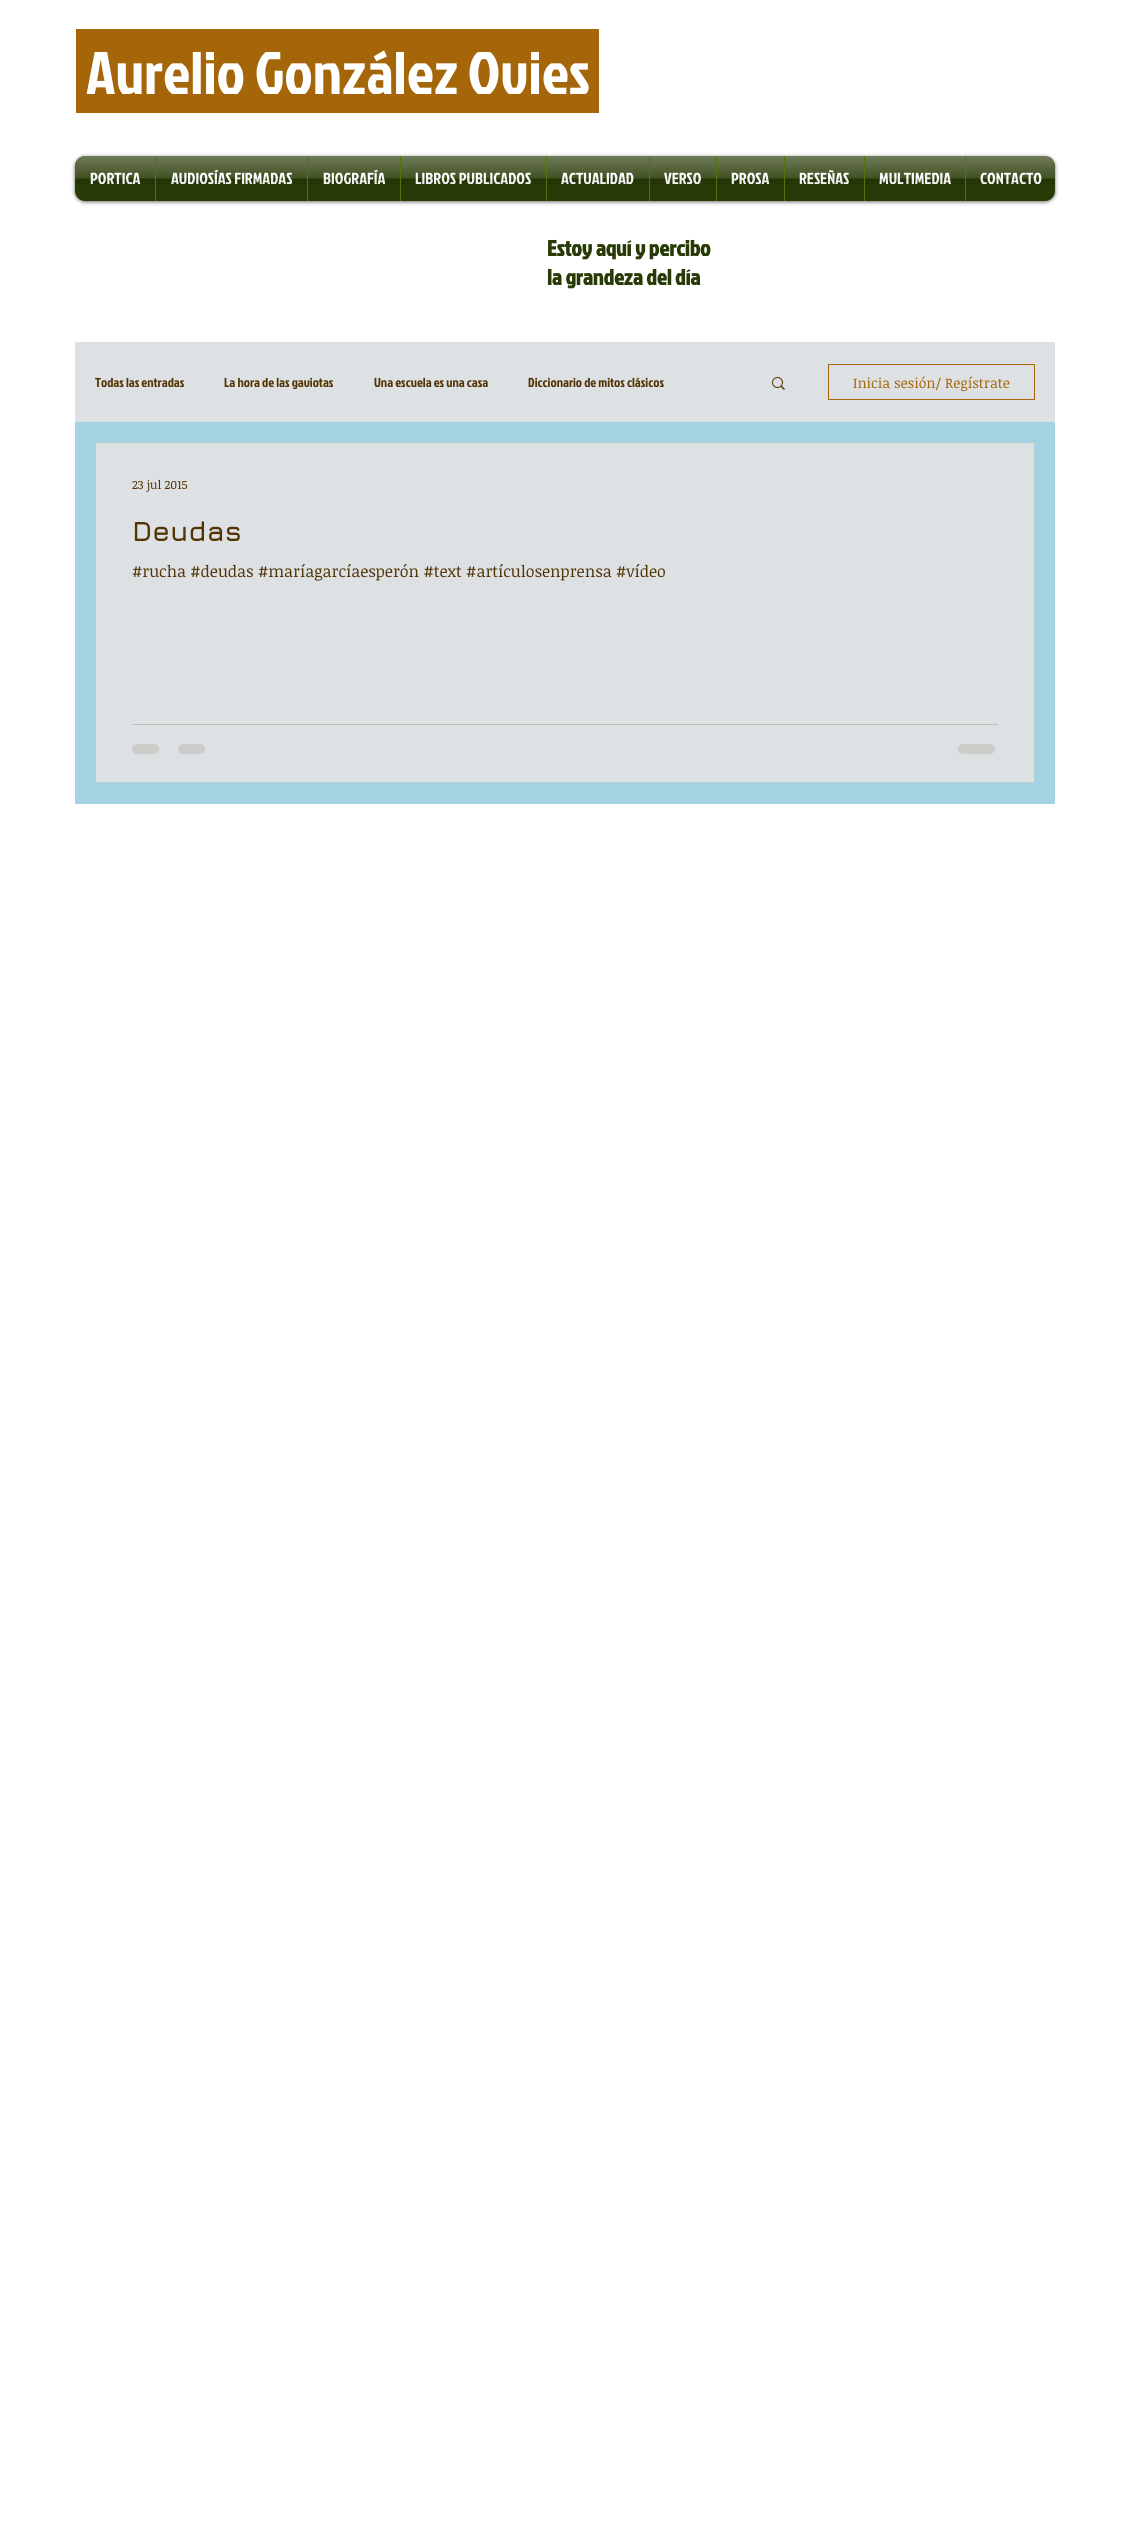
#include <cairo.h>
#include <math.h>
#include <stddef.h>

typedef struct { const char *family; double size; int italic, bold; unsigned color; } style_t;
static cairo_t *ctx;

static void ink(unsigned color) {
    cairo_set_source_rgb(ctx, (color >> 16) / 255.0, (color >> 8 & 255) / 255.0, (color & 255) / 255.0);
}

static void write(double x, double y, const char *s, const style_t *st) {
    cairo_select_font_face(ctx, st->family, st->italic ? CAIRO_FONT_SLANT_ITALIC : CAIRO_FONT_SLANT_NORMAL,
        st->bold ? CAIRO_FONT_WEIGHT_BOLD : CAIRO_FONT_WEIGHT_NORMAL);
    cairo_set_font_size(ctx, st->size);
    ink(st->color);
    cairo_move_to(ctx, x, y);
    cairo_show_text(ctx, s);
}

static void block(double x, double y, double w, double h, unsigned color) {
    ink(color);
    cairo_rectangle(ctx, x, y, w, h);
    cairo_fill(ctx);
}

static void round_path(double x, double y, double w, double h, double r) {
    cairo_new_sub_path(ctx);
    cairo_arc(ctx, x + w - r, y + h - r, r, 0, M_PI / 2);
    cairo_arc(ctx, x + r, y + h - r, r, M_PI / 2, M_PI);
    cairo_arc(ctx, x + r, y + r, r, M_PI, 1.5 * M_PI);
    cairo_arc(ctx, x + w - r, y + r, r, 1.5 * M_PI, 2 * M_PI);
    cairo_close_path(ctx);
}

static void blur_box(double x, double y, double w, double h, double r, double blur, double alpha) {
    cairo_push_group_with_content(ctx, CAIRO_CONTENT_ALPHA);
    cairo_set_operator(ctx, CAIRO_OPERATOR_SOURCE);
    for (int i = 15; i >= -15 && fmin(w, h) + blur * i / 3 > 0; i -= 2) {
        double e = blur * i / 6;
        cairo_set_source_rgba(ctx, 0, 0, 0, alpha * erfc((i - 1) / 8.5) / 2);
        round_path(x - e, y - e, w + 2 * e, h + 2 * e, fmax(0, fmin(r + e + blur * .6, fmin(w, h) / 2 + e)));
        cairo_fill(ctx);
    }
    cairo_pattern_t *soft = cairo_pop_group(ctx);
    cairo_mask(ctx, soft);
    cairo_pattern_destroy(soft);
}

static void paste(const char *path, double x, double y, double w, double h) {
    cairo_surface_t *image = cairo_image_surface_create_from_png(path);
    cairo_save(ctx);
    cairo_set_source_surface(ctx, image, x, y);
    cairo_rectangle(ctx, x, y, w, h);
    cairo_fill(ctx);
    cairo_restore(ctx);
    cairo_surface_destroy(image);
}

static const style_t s1 = {"Jockey One", 60, 0, 0, 0xffffff};
static const style_t s2 = {"Jockey One", 16, 0, 0, 0xffffff};
static const style_t s3 = {"Jockey One", 22, 0, 1, 0x283a06};
static const style_t s4 = {"Jockey One", 13, 0, 0, 0x523304};
static const style_t s5 = {"Noticia Text", 14, 0, 0, 0xa46609};
static const style_t s6 = {"Noticia Text", 12, 0, 0, 0x523304};
static const style_t s7 = {"Jura", 28, 0, 1, 0x523304};
static const style_t s8 = {"Noticia Text", 16, 0, 0, 0x523304};

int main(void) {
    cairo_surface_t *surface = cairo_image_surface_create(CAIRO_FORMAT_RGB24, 1130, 2530);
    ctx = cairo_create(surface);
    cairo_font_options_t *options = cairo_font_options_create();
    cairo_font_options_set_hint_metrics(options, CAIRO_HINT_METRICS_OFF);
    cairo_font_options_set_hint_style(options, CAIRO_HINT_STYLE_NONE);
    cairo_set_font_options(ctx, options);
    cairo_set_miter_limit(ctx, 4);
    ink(0xffffff);
    cairo_paint(ctx);
    block(76, 29, 523, 84, 0xa46609);
    write(86, 94, "Aurelio González Ovies", &s1);
    ink(0x000000);
    blur_box(75, 157, 980, 45, 10, 2, 0.6);
    paste("pic1.png", 75, 156, 980, 10);
    ink(0x283a06);
    cairo_new_path(ctx);
    cairo_move_to(ctx, 85, 156);
    cairo_line_to(ctx, 155, 156);
    cairo_line_to(ctx, 155, 201);
    cairo_line_to(ctx, 85, 201);
    cairo_curve_to(ctx, 79.5, 201, 75, 196.5, 75, 191);
    cairo_line_to(ctx, 75, 166);
    cairo_curve_to(ctx, 75, 160.5, 79.5, 156, 85, 156);
    cairo_close_path(ctx);
    cairo_fill(ctx);
    write(90, 184, "PORTICA", &s2);
    paste("pic2.png", 75, 156, 80, 28);
    block(156, 156, 151, 45, 0x283a06);
    block(155, 156, 1, 45, 0x50750c);
    write(171, 184, "AUDIOSÍAS FIRMADAS", &s2);
    paste("pic3.png", 156, 156, 151, 28);
    block(308, 156, 92, 45, 0x283a06);
    block(307, 156, 1, 45, 0x50750c);
    write(323, 184, "BIOGRAFÍA", &s2);
    paste("pic4.png", 308, 156, 92, 28);
    block(401, 156, 145, 45, 0x283a06);
    block(400, 156, 1, 45, 0x50750c);
    write(415, 184, "LIBROS PUBLICADOS", &s2);
    paste("pic5.png", 401, 156, 145, 28);
    block(547, 156, 102, 45, 0x283a06);
    block(546, 156, 1, 45, 0x50750c);
    write(561, 184, "ACTUALIDAD", &s2);
    paste("pic6.png", 547, 156, 102, 28);
    block(650, 156, 66, 45, 0x283a06);
    block(649, 156, 1, 45, 0x50750c);
    write(664, 184, "VERSO", &s2);
    paste("pic7.png", 650, 156, 66, 28);
    block(717, 156, 67, 45, 0x283a06);
    block(716, 156, 1, 45, 0x50750c);
    write(731, 184, "PROSA", &s2);
    paste("pic8.png", 717, 156, 67, 28);
    block(785, 156, 79, 45, 0x283a06);
    block(784, 156, 1, 45, 0x50750c);
    write(799, 184, "RESEÑAS", &s2);
    paste("pic9.png", 785, 156, 79, 28);
    block(865, 156, 100, 45, 0x283a06);
    block(864, 156, 1, 45, 0x50750c);
    write(879, 184, "MULTIMEDIA", &s2);
    paste("pic10.png", 865, 156, 100, 28);
    ink(0x283a06);
    cairo_new_path(ctx);
    cairo_move_to(ctx, 965, 156);
    cairo_line_to(ctx, 1045, 156);
    cairo_curve_to(ctx, 1050.5, 156, 1055, 160.5, 1055, 166);
    cairo_line_to(ctx, 1055, 191);
    cairo_curve_to(ctx, 1055, 196.5, 1050.5, 201, 1045, 201);
    cairo_line_to(ctx, 965, 201);
    cairo_close_path(ctx);
    cairo_fill(ctx);
    block(965, 156, 1, 45, 0x50750c);
    write(980, 184, "CONTACTO", &s2);
    paste("pic11.png", 966, 156, 89, 28);
    write(547, 256, "Estoy aquí y percibo", &s3);
    write(547, 285, "la grandeza del día", &s3);
    block(75, 422, 980, 382, 0xa4d2e2);
    block(75, 342, 980, 80, 0xdde1e3);
    write(95, 387, "Todas las entradas", &s4);
    write(224, 387, "La hora de las gaviotas", &s4);
    write(374, 387, "Una escuela es una casa", &s4);
    write(528, 387, "Diccionario de mitos clásicos", &s4);
    paste("pic12.png", 772, 377, 13, 13);
    cairo_rectangle(ctx, 828.5, 364.5, 206, 35);
    ink(0xa46609);
    cairo_set_line_width(ctx, 1);
    cairo_stroke(ctx);
    write(853, 388, "Inicia sesión/ Regístrate", &s5);
    cairo_rectangle(ctx, 95.5, 442.5, 939, 340);
    ink(0xb2d1d3);
    cairo_stroke(ctx);
    block(96, 443, 938, 339, 0xdde1e3);
    write(132, 489, "23 jul 2015", &s6);
    write(132, 541, "Deudas", &s7);
    write(132, 577, "#rucha #deudas #maríagarcíaesperón #text #artículosenprensa #vídeo", &s8);
    block(132, 724, 866, 1, 0xc1beb6);
    ink(0xccccc8);
    round_path(132, 744, 27, 10, 5);
    cairo_fill(ctx);
    round_path(178, 744, 27, 10, 5);
    cairo_fill(ctx);
    round_path(958, 744, 37, 10, 5);
    cairo_fill(ctx);
    cairo_surface_write_to_png(surface, "screenshot.png");
    cairo_font_options_destroy(options);
    cairo_destroy(ctx);
    cairo_surface_destroy(surface);
    return 0;
}
